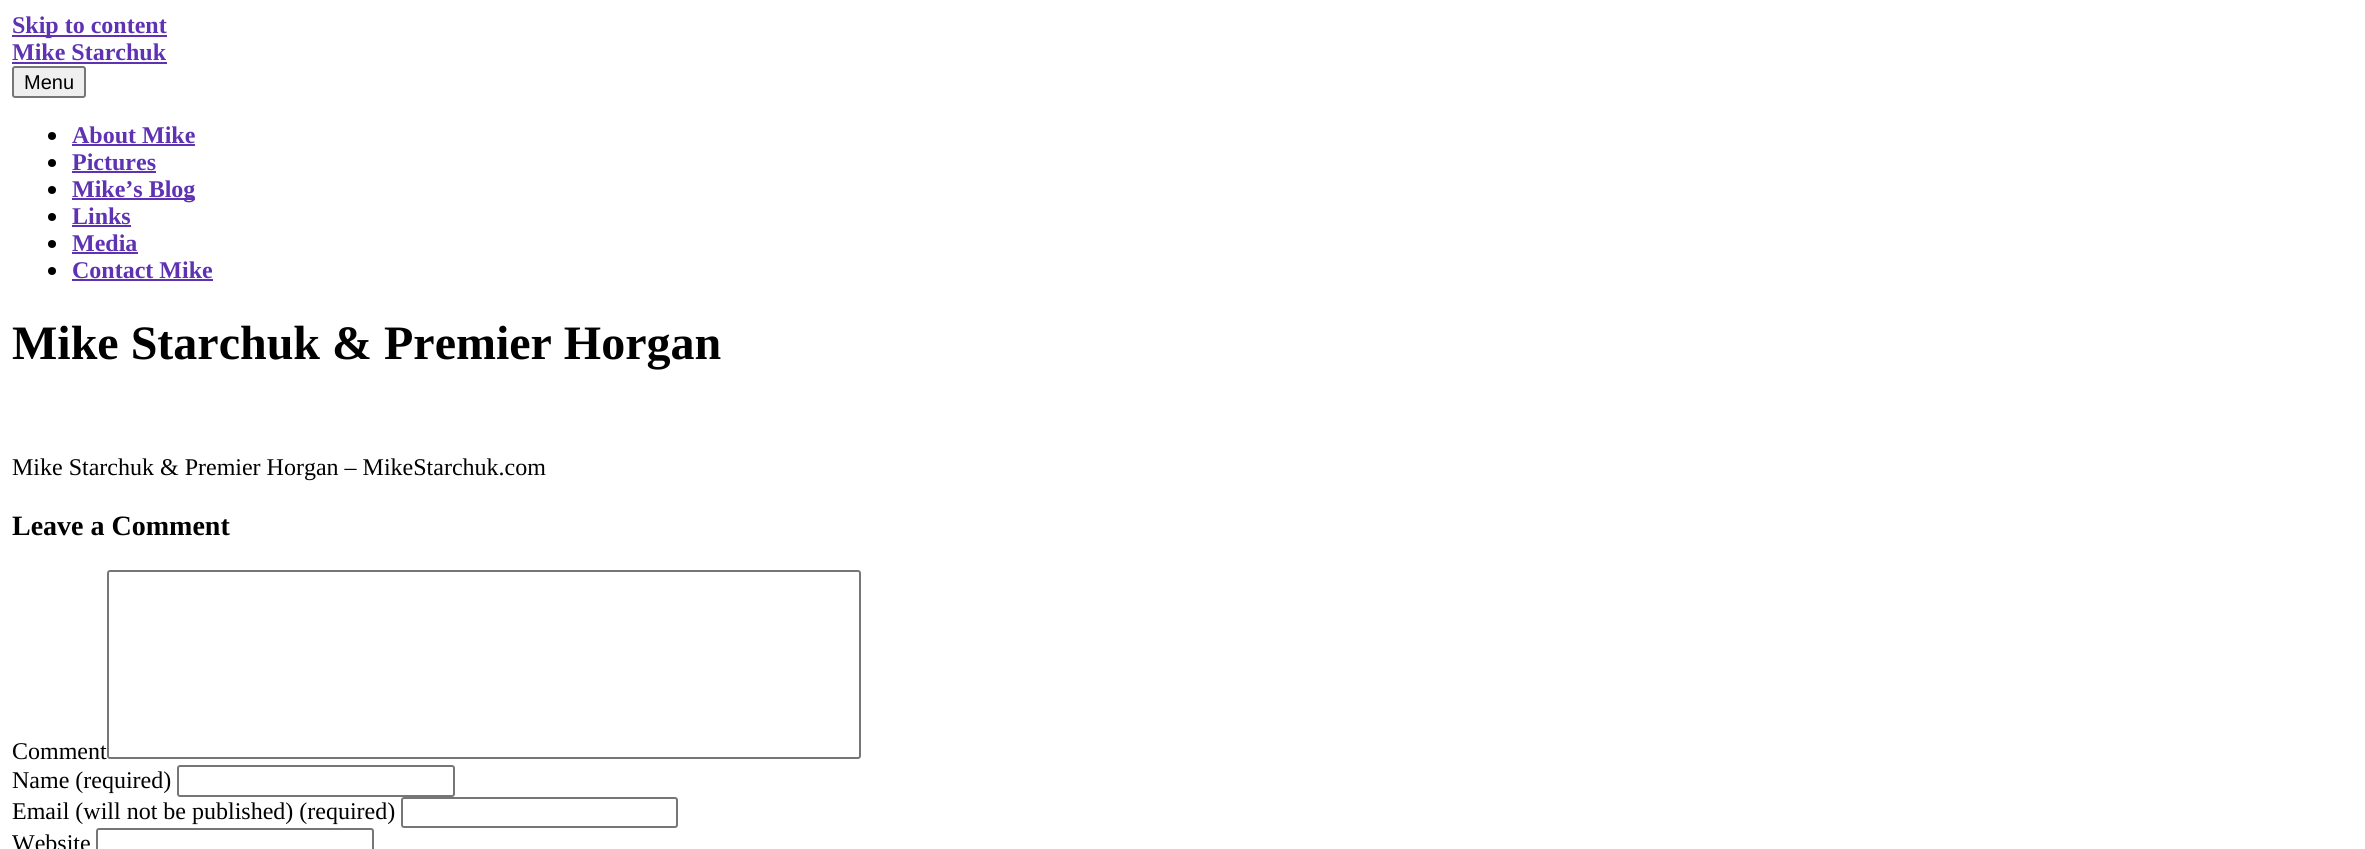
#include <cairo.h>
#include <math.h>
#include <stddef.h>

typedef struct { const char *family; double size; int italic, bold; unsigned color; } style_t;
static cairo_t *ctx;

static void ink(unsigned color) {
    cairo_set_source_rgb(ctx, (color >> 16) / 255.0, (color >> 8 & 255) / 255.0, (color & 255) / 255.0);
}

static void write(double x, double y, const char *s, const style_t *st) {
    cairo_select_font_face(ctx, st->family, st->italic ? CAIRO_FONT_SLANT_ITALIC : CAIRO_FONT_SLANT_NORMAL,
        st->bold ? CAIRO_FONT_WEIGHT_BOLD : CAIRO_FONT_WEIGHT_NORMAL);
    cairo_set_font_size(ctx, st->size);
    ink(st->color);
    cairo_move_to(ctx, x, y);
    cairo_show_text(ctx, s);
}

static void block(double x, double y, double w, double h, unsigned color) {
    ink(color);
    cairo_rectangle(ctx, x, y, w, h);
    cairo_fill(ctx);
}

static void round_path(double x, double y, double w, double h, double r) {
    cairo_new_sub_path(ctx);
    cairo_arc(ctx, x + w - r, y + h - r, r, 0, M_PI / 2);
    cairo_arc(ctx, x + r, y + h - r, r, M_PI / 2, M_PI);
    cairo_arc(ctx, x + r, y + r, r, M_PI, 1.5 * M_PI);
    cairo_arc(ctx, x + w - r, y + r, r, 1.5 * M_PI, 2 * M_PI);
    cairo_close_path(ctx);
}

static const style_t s1 = {"Liberation Serif", 24, 0, 1, 0x5e32b3};
static const style_t s2 = {"Liberation Sans", 20, 0, 0, 0x000000};
static const style_t s3 = {"Liberation Serif", 48, 0, 1, 0x000000};
static const style_t s4 = {"Liberation Serif", 24, 0, 0, 0x000000};
static const style_t s5 = {"Liberation Serif", 28, 0, 1, 0x000000};

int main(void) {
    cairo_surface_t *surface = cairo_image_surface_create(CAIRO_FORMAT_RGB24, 2365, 849);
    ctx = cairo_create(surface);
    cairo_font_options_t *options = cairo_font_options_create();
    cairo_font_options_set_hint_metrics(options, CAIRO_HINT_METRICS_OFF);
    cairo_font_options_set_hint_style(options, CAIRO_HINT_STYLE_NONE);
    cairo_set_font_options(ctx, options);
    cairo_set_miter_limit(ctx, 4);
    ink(0xffffff);
    cairo_paint(ctx);
    block(12, 35, 155, 2, 0x5e32b3);
    write(12, 33, "Skip to content", &s1);
    write(12, 60, "Mike Starchuk", &s1);
    block(12, 62, 155, 2, 0x5e32b3);
    ink(0xefefef);
    round_path(13, 67, 72, 30, 2);
    cairo_fill_preserve(ctx);
    ink(0x767676);
    cairo_stroke(ctx);
    write(24, 89, "Menu", &s2);
    cairo_new_path(ctx);
    cairo_arc(ctx, 52, 136, 4, 0, 2 * M_PI);
    cairo_fill(ctx);
    write(72, 143, "About Mike", &s1);
    block(72, 144, 123, 2, 0x5e32b3);
    ink(0x000000);
    cairo_new_path(ctx);
    cairo_arc(ctx, 52, 163, 4, 0, 2 * M_PI);
    cairo_fill(ctx);
    write(72, 170, "Pictures", &s1);
    block(72, 171, 84, 2, 0x5e32b3);
    ink(0x000000);
    cairo_new_path(ctx);
    cairo_arc(ctx, 52, 190, 4, 0, 2 * M_PI);
    cairo_fill(ctx);
    block(72, 198, 123, 2, 0x5e32b3);
    write(72, 197, "Mike’s Blog", &s1);
    ink(0x000000);
    cairo_new_path(ctx);
    cairo_arc(ctx, 52, 217, 4, 0, 2 * M_PI);
    cairo_fill(ctx);
    write(72, 224, "Links", &s1);
    block(72, 225, 59, 2, 0x5e32b3);
    ink(0x000000);
    cairo_new_path(ctx);
    cairo_arc(ctx, 52, 244, 4, 0, 2 * M_PI);
    cairo_fill(ctx);
    write(72, 251, "Media", &s1);
    block(72, 252, 66, 2, 0x5e32b3);
    ink(0x000000);
    cairo_new_path(ctx);
    cairo_arc(ctx, 52, 271, 4, 0, 2 * M_PI);
    cairo_fill(ctx);
    write(72, 278, "Contact Mike", &s1);
    block(72, 279, 141, 2, 0x5e32b3);
    write(12, 359, "Mike Starchuk & Premier Horgan", &s3);
    write(12, 475, "Mike Starchuk & Premier Horgan – MikeStarchuk.com", &s4);
    write(12, 535, "Leave a Comment", &s5);
    write(12, 759, "Comment", &s4);
    round_path(108, 571, 752, 187, 2);
    ink(0x767676);
    cairo_stroke(ctx);
    write(12, 788, "Name (required)", &s4);
    round_path(178, 766, 276, 30, 2);
    ink(0x767676);
    cairo_stroke(ctx);
    write(12, 819, "Email (will not be published) (required)", &s4);
    round_path(402, 798, 275, 29, 2);
    ink(0x767676);
    cairo_stroke(ctx);
    write(12, 851, "Website", &s4);
    round_path(97, 829, 276, 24, 2);
    ink(0x767676);
    cairo_stroke(ctx);
    cairo_surface_write_to_png(surface, "screenshot.png");
    cairo_font_options_destroy(options);
    cairo_destroy(ctx);
    cairo_surface_destroy(surface);
    return 0;
}
